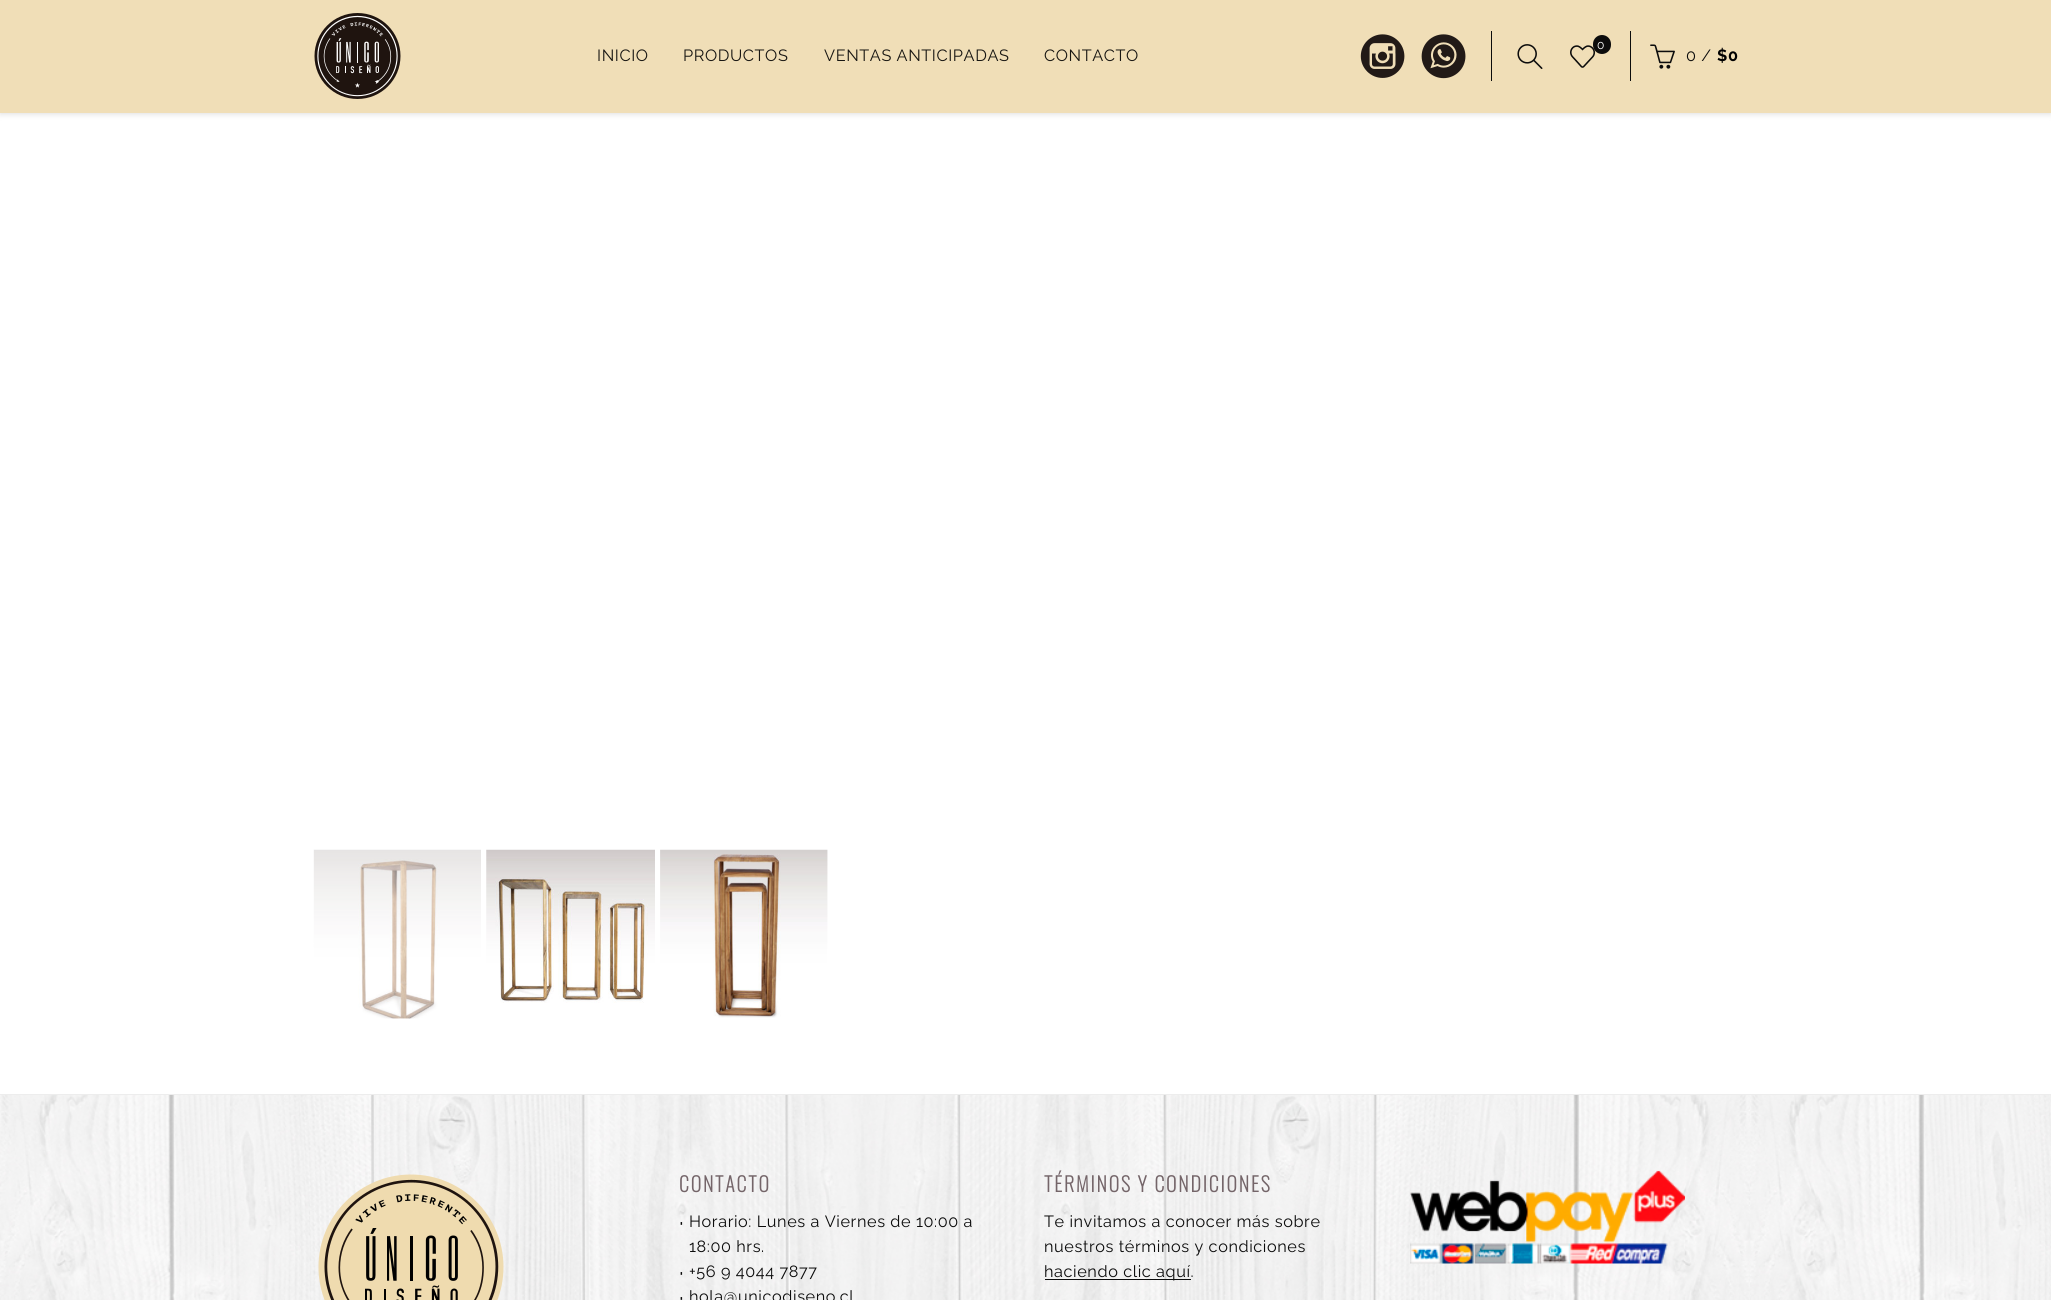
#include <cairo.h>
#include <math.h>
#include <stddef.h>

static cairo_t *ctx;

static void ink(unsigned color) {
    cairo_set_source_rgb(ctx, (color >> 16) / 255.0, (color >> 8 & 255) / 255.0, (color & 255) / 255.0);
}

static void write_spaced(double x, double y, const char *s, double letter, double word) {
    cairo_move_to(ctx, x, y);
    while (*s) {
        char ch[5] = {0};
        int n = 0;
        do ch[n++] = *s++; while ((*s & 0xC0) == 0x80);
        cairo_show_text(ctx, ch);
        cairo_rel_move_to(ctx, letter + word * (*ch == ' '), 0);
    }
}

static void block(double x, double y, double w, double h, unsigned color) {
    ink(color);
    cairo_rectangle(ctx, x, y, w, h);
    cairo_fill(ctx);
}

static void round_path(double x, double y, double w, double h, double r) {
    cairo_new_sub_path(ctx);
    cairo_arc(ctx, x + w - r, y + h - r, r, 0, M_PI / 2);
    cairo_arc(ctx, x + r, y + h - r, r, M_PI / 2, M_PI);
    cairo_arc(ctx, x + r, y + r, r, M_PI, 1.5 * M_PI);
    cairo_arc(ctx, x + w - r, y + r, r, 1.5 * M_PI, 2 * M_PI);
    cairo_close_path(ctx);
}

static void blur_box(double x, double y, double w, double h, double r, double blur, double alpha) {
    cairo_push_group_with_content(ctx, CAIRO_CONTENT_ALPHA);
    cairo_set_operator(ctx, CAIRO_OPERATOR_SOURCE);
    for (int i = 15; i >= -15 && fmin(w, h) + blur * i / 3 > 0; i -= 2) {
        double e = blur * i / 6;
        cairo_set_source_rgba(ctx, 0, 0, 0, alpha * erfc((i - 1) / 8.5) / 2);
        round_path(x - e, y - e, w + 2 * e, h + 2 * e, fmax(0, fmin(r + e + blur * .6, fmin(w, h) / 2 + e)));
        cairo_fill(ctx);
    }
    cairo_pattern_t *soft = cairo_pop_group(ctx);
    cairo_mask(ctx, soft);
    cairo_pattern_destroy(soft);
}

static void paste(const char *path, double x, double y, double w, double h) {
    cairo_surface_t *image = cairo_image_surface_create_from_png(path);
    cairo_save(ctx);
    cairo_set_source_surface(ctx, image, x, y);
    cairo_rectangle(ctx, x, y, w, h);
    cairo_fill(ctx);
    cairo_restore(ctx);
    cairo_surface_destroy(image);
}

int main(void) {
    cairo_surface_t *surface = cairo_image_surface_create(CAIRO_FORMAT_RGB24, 2051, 1300);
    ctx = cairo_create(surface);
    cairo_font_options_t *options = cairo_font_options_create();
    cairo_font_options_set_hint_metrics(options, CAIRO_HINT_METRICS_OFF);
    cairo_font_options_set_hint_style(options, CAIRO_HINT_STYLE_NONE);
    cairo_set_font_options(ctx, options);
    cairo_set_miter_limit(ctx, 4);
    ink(0xffffff);
    cairo_paint(ctx);
    cairo_save(ctx);
    cairo_set_fill_rule(ctx, CAIRO_FILL_RULE_EVEN_ODD);
    cairo_new_path(ctx);
    cairo_move_to(ctx, 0, 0);
    cairo_line_to(ctx, 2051, 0);
    cairo_line_to(ctx, 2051, 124);
    cairo_line_to(ctx, 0, 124);
    cairo_close_path(ctx);
    cairo_move_to(ctx, 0, 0);
    cairo_line_to(ctx, 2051, 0);
    cairo_line_to(ctx, 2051, 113);
    cairo_line_to(ctx, 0, 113);
    cairo_close_path(ctx);
    cairo_clip(ctx);
    ink(0xbebebe);
    blur_box(0, 1, 2051, 113, 0, 3, 0.5);
    cairo_restore(ctx);
    cairo_set_source_rgba(ctx, 0.937, 0.859, 0.686, 0.9);
    cairo_rectangle(ctx, 0, 0, 2051, 113);
    cairo_fill(ctx);
    paste("pic1.png", 314, 13, 87, 86);
    cairo_select_font_face(ctx, "Raleway", CAIRO_FONT_SLANT_NORMAL, CAIRO_FONT_WEIGHT_NORMAL);
    cairo_set_font_size(ctx, 16.25);
    ink(0x181612);
    write_spaced(597, 61, "INICIO", 0.6, 0);
    write_spaced(683, 61, "PRODUCTOS", 0.6, 0);
    write_spaced(824, 61, "VENTAS ANTICIPADAS", 0.6, 0);
    write_spaced(1044, 61, "CONTACTO", 0.6, 0);
    block(1491, 31, 1, 50, 0x0c0c0c);
    paste("pic2.png", 1360, 34, 45, 44);
    paste("pic3.png", 1421, 34, 45, 45);
    paste("pic4.png", 1517, 44, 26, 25);
    paste("pic5.png", 1570, 45, 26, 23);
    round_path(1593, 35, 18, 19, 9);
    cairo_fill(ctx);
    cairo_set_font_size(ctx, 12);
    ink(0xffffff);
    write_spaced(1597, 49, "0", 0.6, 0);
    block(1630, 31, 1, 50, 0x0c0c0c);
    paste("pic6.png", 1650, 44, 25, 25);
    cairo_set_font_size(ctx, 16.25);
    write_spaced(1686, 61, "0 /", 0.6, 0);
    cairo_select_font_face(ctx, "Raleway", CAIRO_FONT_SLANT_NORMAL, CAIRO_FONT_WEIGHT_BOLD);
    ink(0x000000);
    write_spaced(1717, 61, "$0", 0.6, 0);
    paste("pic7.png", 313, 849, 168, 170);
    paste("pic8.png", 486, 849, 169, 154);
    paste("pic9.png", 660, 849, 168, 169);
    block(0, 1094, 2051, 1, 0xededed);
    paste("pic10.png", 0, 1095, 2051, 205);
    paste("pic11.png", 318, 1174, 186, 126);
    cairo_select_font_face(ctx, "Oswald", CAIRO_FONT_SLANT_NORMAL, CAIRO_FONT_WEIGHT_BOLD);
    cairo_set_font_size(ctx, 20);
    ink(0x746569);
    write_spaced(679, 1192, "CONTACTO", 1.9, 0);
    cairo_select_font_face(ctx, "Raleway", CAIRO_FONT_SLANT_NORMAL, CAIRO_FONT_WEIGHT_NORMAL);
    cairo_set_font_size(ctx, 25);
    ink(0x0c0c0c);
    write_spaced(679, 1231, "·", 0.6, 0);
    cairo_set_font_size(ctx, 16.25);
    write_spaced(689, 1227, "Horario: Lunes a Viernes de 10:00 a", 0.6, 0);
    write_spaced(689, 1252, "18:00 hrs.", 0.6, 0);
    cairo_set_font_size(ctx, 25);
    write_spaced(679, 1281, "·", 0.6, 0);
    cairo_set_font_size(ctx, 16.25);
    write_spaced(689, 1277, "+56 9 4044 7877", 0.6, 0);
    cairo_set_font_size(ctx, 25);
    write_spaced(679, 1306, "·", 0.6, 0);
    cairo_set_font_size(ctx, 16.25);
    write_spaced(689, 1302, "hola@unicodiseno.cl", 0.6, 0);
    cairo_select_font_face(ctx, "Oswald", CAIRO_FONT_SLANT_NORMAL, CAIRO_FONT_WEIGHT_BOLD);
    cairo_set_font_size(ctx, 20);
    ink(0x746569);
    write_spaced(1044, 1192, "TÉRMINOS Y CONDICIONES", 1.9, 0);
    cairo_select_font_face(ctx, "Raleway", CAIRO_FONT_SLANT_NORMAL, CAIRO_FONT_WEIGHT_NORMAL);
    cairo_set_font_size(ctx, 16.25);
    ink(0x0c0c0c);
    write_spaced(1044, 1227, "Te invitamos a conocer más sobre", 0.6, 0);
    write_spaced(1044, 1252, "nuestros términos y condiciones", 0.6, 0);
    block(1045, 1279, 146, 1, 0x0c0c0c);
    write_spaced(1044, 1277, "haciendo clic aquí.", 0.6, 0);
    paste("pic12.png", 1410, 1170, 275, 94);
    cairo_surface_write_to_png(surface, "screenshot.png");
    cairo_font_options_destroy(options);
    cairo_destroy(ctx);
    cairo_surface_destroy(surface);
    return 0;
}
